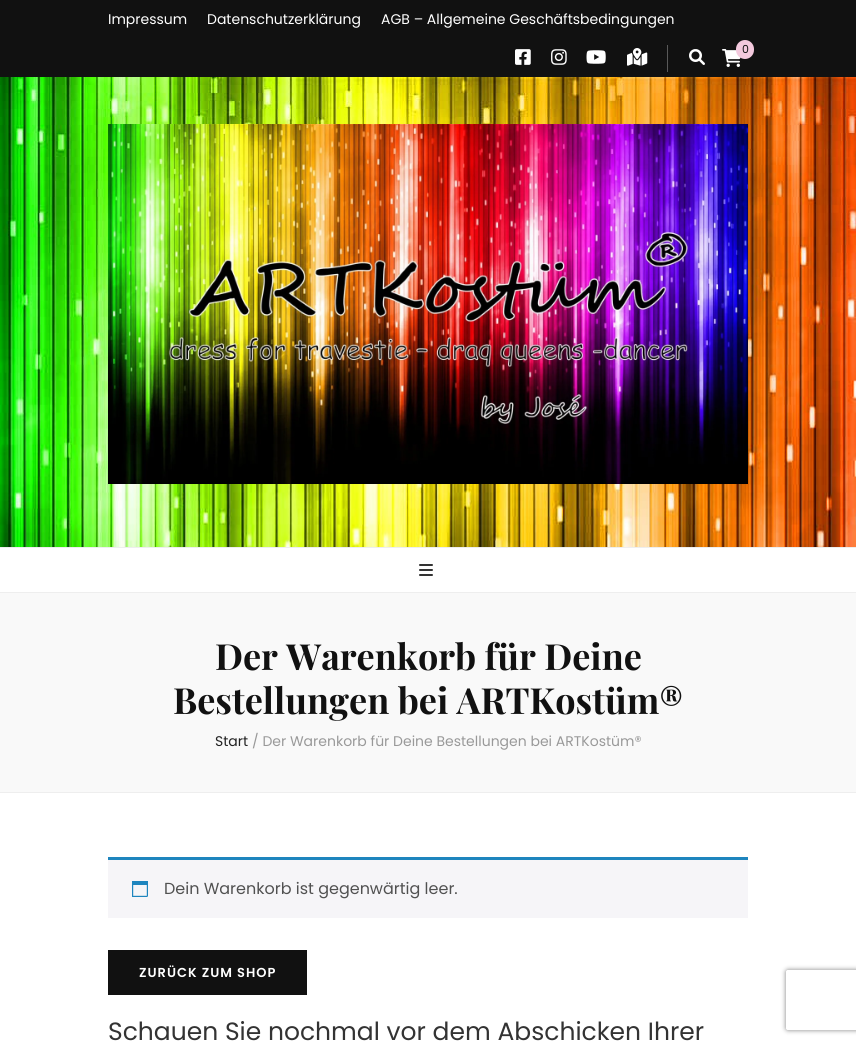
#include <cairo.h>
#include <math.h>
#include <stddef.h>

typedef struct { const char *family; double size; int italic, bold; unsigned color; } style_t;
static cairo_t *ctx;

static void ink(unsigned color) {
    cairo_set_source_rgb(ctx, (color >> 16) / 255.0, (color >> 8 & 255) / 255.0, (color & 255) / 255.0);
}

static void write(double x, double y, const char *s, const style_t *st) {
    cairo_select_font_face(ctx, st->family, st->italic ? CAIRO_FONT_SLANT_ITALIC : CAIRO_FONT_SLANT_NORMAL,
        st->bold ? CAIRO_FONT_WEIGHT_BOLD : CAIRO_FONT_WEIGHT_NORMAL);
    cairo_set_font_size(ctx, st->size);
    ink(st->color);
    cairo_move_to(ctx, x, y);
    cairo_show_text(ctx, s);
}

static void write_spaced(double x, double y, const char *s, double letter, double word) {
    cairo_move_to(ctx, x, y);
    while (*s) {
        char ch[5] = {0};
        int n = 0;
        do ch[n++] = *s++; while ((*s & 0xC0) == 0x80);
        cairo_show_text(ctx, ch);
        cairo_rel_move_to(ctx, letter + word * (*ch == ' '), 0);
    }
}

static void block(double x, double y, double w, double h, unsigned color) {
    ink(color);
    cairo_rectangle(ctx, x, y, w, h);
    cairo_fill(ctx);
}

static void round_path(double x, double y, double w, double h, double r) {
    cairo_new_sub_path(ctx);
    cairo_arc(ctx, x + w - r, y + h - r, r, 0, M_PI / 2);
    cairo_arc(ctx, x + r, y + h - r, r, M_PI / 2, M_PI);
    cairo_arc(ctx, x + r, y + r, r, M_PI, 1.5 * M_PI);
    cairo_arc(ctx, x + w - r, y + r, r, 1.5 * M_PI, 2 * M_PI);
    cairo_close_path(ctx);
}

static void blur_box(double x, double y, double w, double h, double r, double blur, double alpha) {
    cairo_push_group_with_content(ctx, CAIRO_CONTENT_ALPHA);
    cairo_set_operator(ctx, CAIRO_OPERATOR_SOURCE);
    for (int i = 15; i >= -15 && fmin(w, h) + blur * i / 3 > 0; i -= 2) {
        double e = blur * i / 6;
        cairo_set_source_rgba(ctx, 0, 0, 0, alpha * erfc((i - 1) / 8.5) / 2);
        round_path(x - e, y - e, w + 2 * e, h + 2 * e, fmax(0, fmin(r + e + blur * .6, fmin(w, h) / 2 + e)));
        cairo_fill(ctx);
    }
    cairo_pattern_t *soft = cairo_pop_group(ctx);
    cairo_mask(ctx, soft);
    cairo_pattern_destroy(soft);
}

static void paste(const char *path, double x, double y, double w, double h) {
    cairo_surface_t *image = cairo_image_surface_create_from_png(path);
    cairo_save(ctx);
    cairo_set_source_surface(ctx, image, x, y);
    cairo_rectangle(ctx, x, y, w, h);
    cairo_fill(ctx);
    cairo_restore(ctx);
    cairo_surface_destroy(image);
}

static const style_t s1 = {"Poppins", 14, 0, 0, 0xffffff};
static const style_t s2 = {"Poppins", 11, 0, 0, 0x111111};
static const style_t s3 = {"Playfair Display", 36, 0, 1, 0x111111};
static const style_t s4 = {"Poppins", 14, 0, 0, 0x222222};
static const style_t s5 = {"Poppins", 14, 0, 0, 0x999999};
static const style_t s6 = {"Poppins", 16, 0, 0, 0x515151};
static const style_t s7 = {"Poppins", 25, 0, 0, 0x333333};

int main(void) {
    cairo_surface_t *surface = cairo_image_surface_create(CAIRO_FORMAT_RGB24, 856, 1044);
    ctx = cairo_create(surface);
    cairo_font_options_t *options = cairo_font_options_create();
    cairo_font_options_set_hint_metrics(options, CAIRO_HINT_METRICS_OFF);
    cairo_font_options_set_hint_style(options, CAIRO_HINT_STYLE_NONE);
    cairo_set_font_options(ctx, options);
    cairo_set_miter_limit(ctx, 4);
    ink(0xffffff);
    cairo_paint(ctx);
    block(0, 0, 856, 77, 0x111111);
    write(108, 24, "Impressum", &s1);
    write(207, 24, "Datenschutzerklärung", &s1);
    write(381, 24, "AGB – Allgemeine Geschäftsbedingungen", &s1);
    block(667, 45, 1, 27, 0x595959);
    paste("pic1.png", 515, 49, 16, 16);
    paste("pic2.png", 551, 49, 16, 16);
    paste("pic3.png", 586, 50, 20, 14);
    paste("pic4.png", 627, 48, 21, 18);
    paste("pic5.png", 689, 49, 16, 16);
    paste("pic6.png", 722, 49, 19, 18);
    ink(0xf3c9dd);
    round_path(736, 40, 18, 19, 9);
    cairo_fill(ctx);
    write(742, 53, "0", &s2);
    paste("pic7.png", 0, 77, 856, 470);
    paste("pic8.png", 108, 124, 640, 360);
    block(0, 547, 856, 1, 0xeeeeee);
    block(0, 592, 856, 1, 0xeeeeee);
    paste("pic9.png", 419, 564, 14, 12);
    block(0, 593, 856, 199, 0xf9f9f9);
    block(0, 792, 856, 1, 0xeeeeee);
    write(215, 670, "Der Warenkorb für Deine", &s3);
    write(173, 714, "Bestellungen bei ARTKostüm®", &s3);
    write(215, 746, "Start", &s4);
    write(252, 746, "/ Der Warenkorb für Deine Bestellungen bei ARTKostüm®", &s5);
    block(108, 860, 640, 58, 0xf6f5f8);
    block(108, 857, 640, 3, 0x1e85be);
    paste("pic10.png", 132, 881, 16, 16);
    write(164, 894, "Dein Warenkorb ist gegenwärtig leer.", &s6);
    block(108, 950, 199, 45, 0x111111);
    cairo_select_font_face(ctx, "Poppins SemiBold", CAIRO_FONT_SLANT_NORMAL, CAIRO_FONT_WEIGHT_NORMAL);
    cairo_set_font_size(ctx, 13);
    ink(0xffffff);
    write_spaced(139, 977, "ZURÜCK ZUM SHOP", 1, 0);
    write(108, 1040, "Schauen Sie nochmal vor dem Abschicken Ihrer", &s7);
    cairo_save(ctx);
    cairo_set_fill_rule(ctx, CAIRO_FILL_RULE_EVEN_ODD);
    cairo_new_path(ctx);
    cairo_move_to(ctx, 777, 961);
    cairo_line_to(ctx, 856, 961);
    cairo_line_to(ctx, 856, 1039);
    cairo_line_to(ctx, 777, 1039);
    cairo_close_path(ctx);
    cairo_move_to(ctx, 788, 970);
    cairo_line_to(ctx, 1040, 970);
    cairo_curve_to(ctx, 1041, 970, 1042, 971, 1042, 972);
    cairo_line_to(ctx, 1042, 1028);
    cairo_curve_to(ctx, 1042, 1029, 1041, 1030, 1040, 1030);
    cairo_line_to(ctx, 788, 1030);
    cairo_curve_to(ctx, 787, 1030, 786, 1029, 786, 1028);
    cairo_line_to(ctx, 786, 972);
    cairo_curve_to(ctx, 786, 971, 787, 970, 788, 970);
    cairo_close_path(ctx);
    cairo_clip(ctx);
    ink(0x808080);
    blur_box(786, 970, 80, 60, 2, 2.5, 1);
    cairo_restore(ctx);
    cairo_surface_write_to_png(surface, "screenshot.png");
    cairo_font_options_destroy(options);
    cairo_destroy(ctx);
    cairo_surface_destroy(surface);
    return 0;
}
